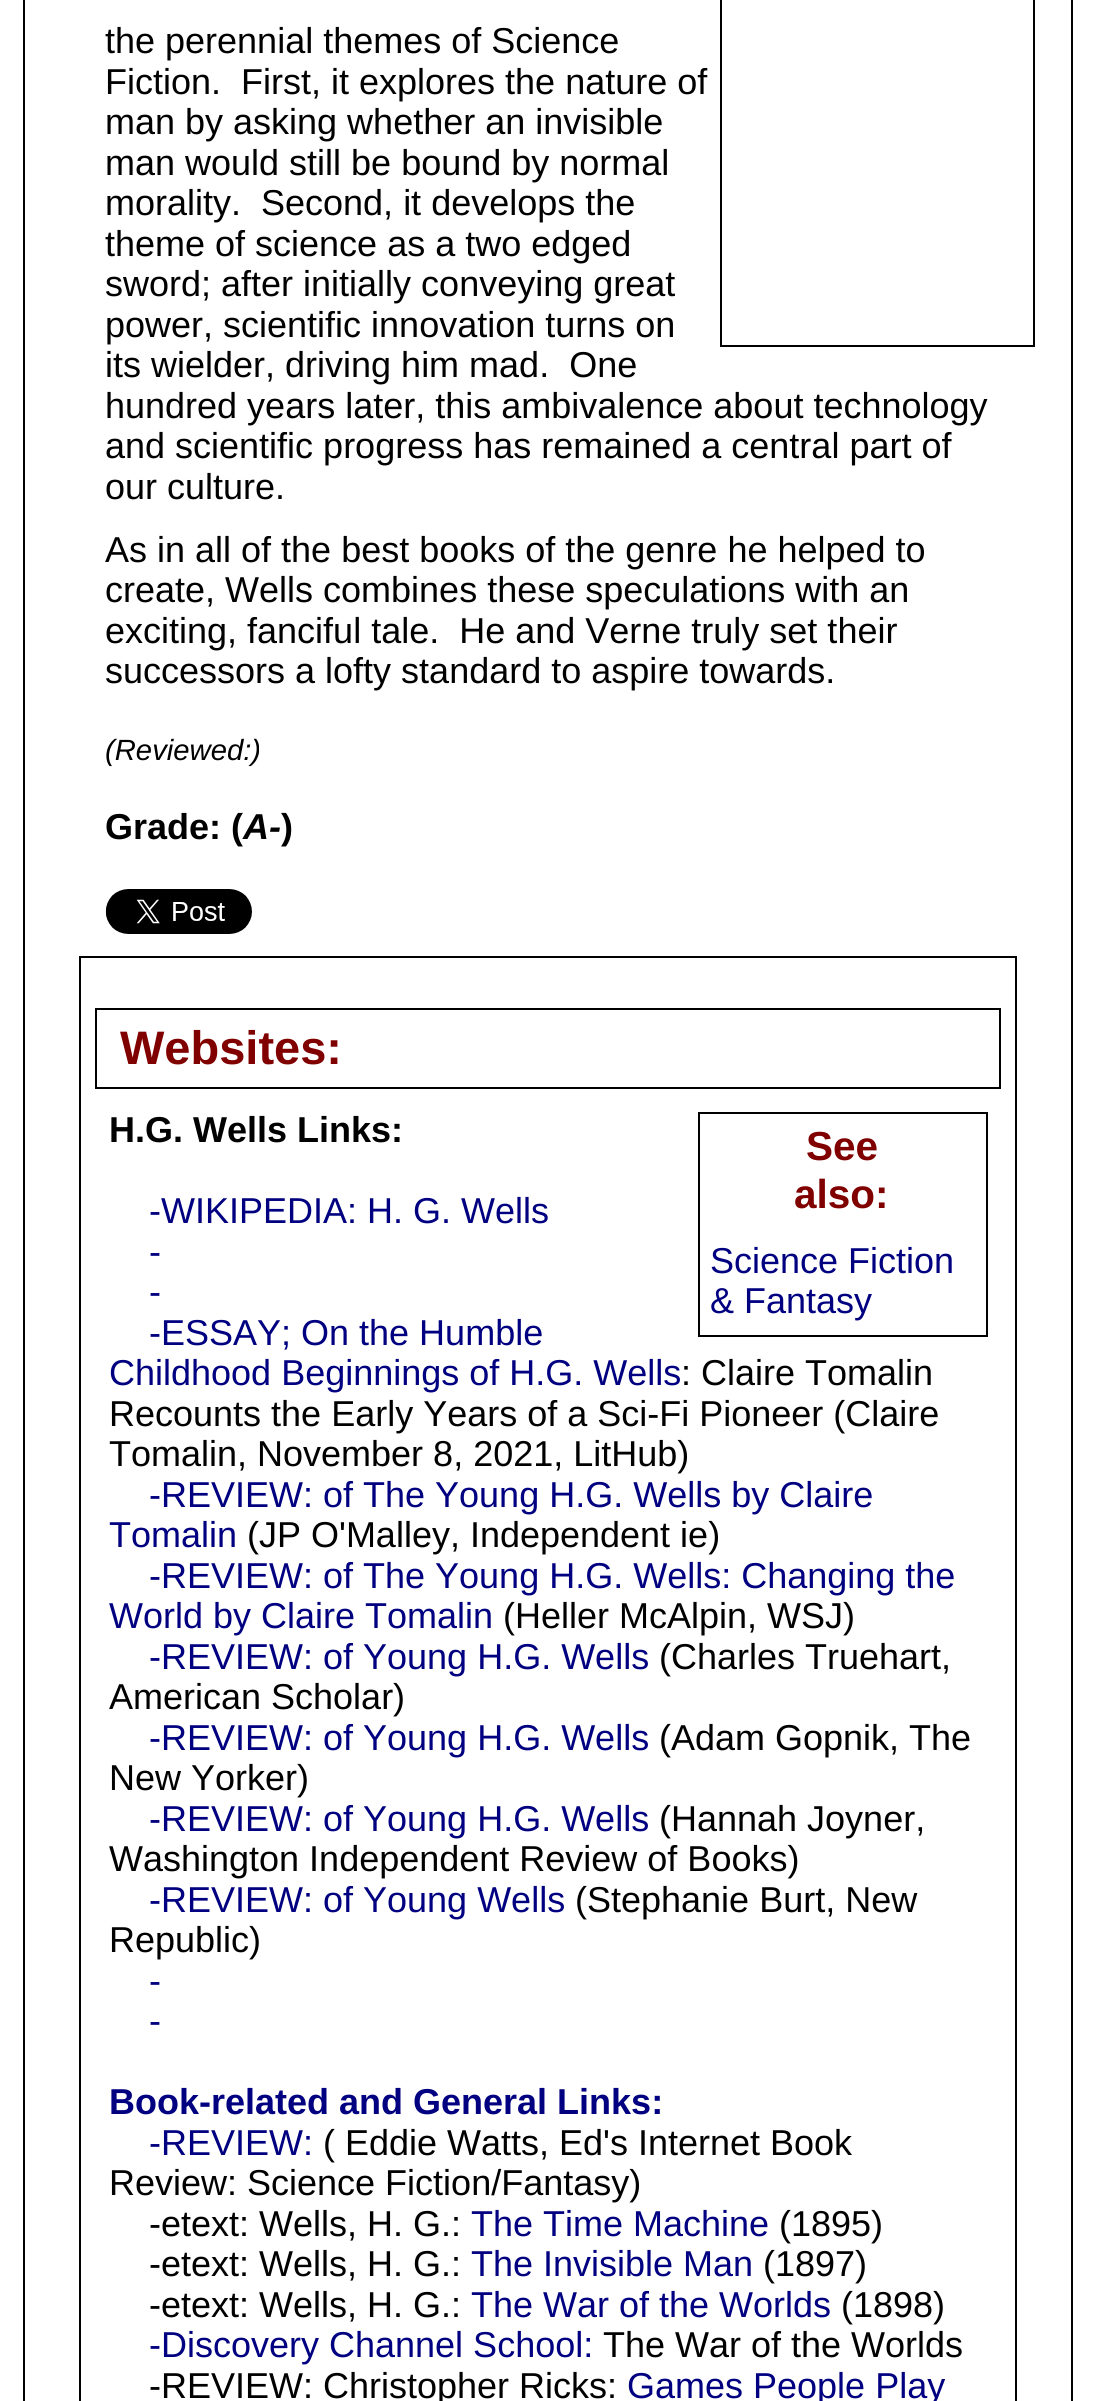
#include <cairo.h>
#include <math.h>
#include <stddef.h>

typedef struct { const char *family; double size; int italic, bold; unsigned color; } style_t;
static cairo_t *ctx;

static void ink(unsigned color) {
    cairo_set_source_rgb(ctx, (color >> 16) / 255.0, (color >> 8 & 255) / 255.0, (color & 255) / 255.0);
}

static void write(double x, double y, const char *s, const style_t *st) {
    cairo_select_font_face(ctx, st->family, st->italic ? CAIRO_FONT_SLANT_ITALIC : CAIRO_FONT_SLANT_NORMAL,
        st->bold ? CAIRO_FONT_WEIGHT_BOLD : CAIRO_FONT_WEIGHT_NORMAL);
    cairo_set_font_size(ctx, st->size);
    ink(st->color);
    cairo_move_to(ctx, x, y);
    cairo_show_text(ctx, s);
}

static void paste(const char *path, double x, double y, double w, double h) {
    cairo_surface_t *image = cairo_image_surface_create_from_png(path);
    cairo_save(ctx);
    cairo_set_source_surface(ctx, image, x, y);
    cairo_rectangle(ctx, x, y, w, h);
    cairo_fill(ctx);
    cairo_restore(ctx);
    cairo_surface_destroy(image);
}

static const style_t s1 = {"Liberation Sans", 36, 0, 0, 0x000000};
static const style_t s2 = {"Liberation Sans", 29.25, 1, 0, 0x000000};
static const style_t s3 = {"Liberation Sans", 36, 0, 1, 0x000000};
static const style_t s4 = {"Liberation Sans", 36, 1, 1, 0x000000};
static const style_t s5 = {"Liberation Sans", 47, 0, 1, 0x800000};
static const style_t s6 = {"Liberation Sans", 40.5, 0, 1, 0x800000};
static const style_t s7 = {"Liberation Sans", 36, 0, 0, 0x000080};
static const style_t s8 = {"Liberation Sans", 36, 0, 1, 0x000080};

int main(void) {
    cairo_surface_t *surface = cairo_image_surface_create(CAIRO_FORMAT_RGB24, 1094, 2401);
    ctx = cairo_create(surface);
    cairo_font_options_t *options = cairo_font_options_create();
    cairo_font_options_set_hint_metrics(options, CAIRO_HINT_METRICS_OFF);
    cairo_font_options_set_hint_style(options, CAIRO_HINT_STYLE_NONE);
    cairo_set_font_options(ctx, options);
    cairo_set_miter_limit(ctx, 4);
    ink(0xffffff);
    cairo_paint(ctx);
    cairo_rectangle(ctx, 24, -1, 1048, 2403);
    ink(0x000000);
    cairo_stroke(ctx);
    cairo_rectangle(ctx, 721, -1, 313, 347);
    cairo_stroke(ctx);
    write(105, 53, "the perennial themes of Science", &s1);
    write(105, 94, "Fiction.  First, it explores the nature of", &s1);
    write(105, 134, "man by asking whether an invisible", &s1);
    write(105, 175, "man would still be bound by normal", &s1);
    write(105, 215, "morality.  Second, it develops the", &s1);
    write(105, 256, "theme of science as a two edged", &s1);
    write(105, 296, "sword; after initially conveying great", &s1);
    write(105, 337, "power, scientific innovation turns on", &s1);
    write(105, 377, "its wielder, driving him mad.  One", &s1);
    write(105, 418, "hundred years later, this ambivalence about technology", &s1);
    write(105, 458, "and scientific progress has remained a central part of", &s1);
    write(105, 499, "our culture.", &s1);
    write(105, 562, "As in all of the best books of the genre he helped to", &s1);
    write(105, 602, "create, Wells combines these speculations with an", &s1);
    write(105, 643, "exciting, fanciful tale.  He and Verne truly set their", &s1);
    write(105, 683, "successors a lofty standard to aspire towards.", &s1);
    write(105, 760, "(Reviewed:)", &s2);
    write(105, 839, "Grade: (", &s3);
    write(243, 839, "A-", &s4);
    write(281, 839, ")", &s3);
    paste("pic1.png", 105, 889, 147, 45);
    cairo_rectangle(ctx, 80, 957, 936, 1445);
    cairo_stroke(ctx);
    cairo_rectangle(ctx, 96, 1009, 904, 79);
    cairo_stroke(ctx);
    write(120, 1064, "Websites:", &s5);
    write(109, 1142, "H.G. Wells Links:", &s3);
    cairo_rectangle(ctx, 699, 1113, 288, 223);
    cairo_stroke(ctx);
    write(806, 1160, "See", &s6);
    write(794, 1208, "also:", &s6);
    write(710, 1273, "Science Fiction", &s7);
    write(710, 1313, "& Fantasy", &s7);
    write(149, 1223, "-WIKIPEDIA: H. G. Wells", &s7);
    write(149, 1264, "-", &s7);
    write(149, 1304, "-", &s7);
    write(149, 1345, "-ESSAY; On the Humble", &s7);
    write(109, 1385, "Childhood Beginnings of H.G. Wells", &s7);
    write(681, 1385, ": Claire Tomalin", &s1);
    write(109, 1426, "Recounts the Early Years of a Sci-Fi Pioneer (Claire", &s1);
    write(109, 1466, "Tomalin, November 8, 2021, LitHub)", &s1);
    write(149, 1507, "-REVIEW: of The Young H.G. Wells by Claire", &s7);
    write(109, 1547, "Tomalin", &s7);
    write(247, 1547, "(JP O'Malley, Independent ie)", &s1);
    write(149, 1588, "-REVIEW: of The Young H.G. Wells: Changing the", &s7);
    write(109, 1628, "World by Claire Tomalin", &s7);
    write(503, 1628, "(Heller McAlpin, WSJ)", &s1);
    write(149, 1669, "-REVIEW: of Young H.G. Wells", &s7);
    write(659, 1669, "(Charles Truehart,", &s1);
    write(109, 1709, "American Scholar)", &s1);
    write(149, 1750, "-REVIEW: of Young H.G. Wells", &s7);
    write(659, 1750, "(Adam Gopnik, The", &s1);
    write(109, 1790, "New Yorker)", &s1);
    write(149, 1831, "-REVIEW: of Young H.G. Wells", &s7);
    write(659, 1831, "(Hannah Joyner,", &s1);
    write(109, 1871, "Washington Independent Review of Books)", &s1);
    write(149, 1912, "-REVIEW: of Young Wells", &s7);
    write(575, 1912, "(Stephanie Burt, New", &s1);
    write(109, 1952, "Republic)", &s1);
    write(149, 1993, "-", &s7);
    write(149, 2033, "-", &s7);
    write(109, 2114, "Book-related and General Links:", &s8);
    write(149, 2155, "-REVIEW:", &s7);
    write(323, 2155, "( Eddie Watts, Ed's Internet Book", &s1);
    write(109, 2195, "Review: Science Fiction/Fantasy)", &s1);
    write(149, 2236, "-etext: Wells, H. G.:", &s1);
    write(471, 2236, "The Time Machine", &s7);
    write(779, 2236, "(1895)", &s1);
    write(149, 2276, "-etext: Wells, H. G.:", &s1);
    write(471, 2276, "The Invisible Man", &s7);
    write(763, 2276, "(1897)", &s1);
    write(149, 2317, "-etext: Wells, H. G.:", &s1);
    write(471, 2317, "The War of the Worlds", &s7);
    write(841, 2317, "(1898)", &s1);
    write(149, 2357, "-Discovery Channel School:", &s7);
    write(603, 2357, "The War of the Worlds", &s1);
    write(149, 2398, "-REVIEW: Christopher Ricks:", &s1);
    write(627, 2398, "Games People Play", &s7);
    cairo_surface_write_to_png(surface, "screenshot.png");
    cairo_font_options_destroy(options);
    cairo_destroy(ctx);
    cairo_surface_destroy(surface);
    return 0;
}
